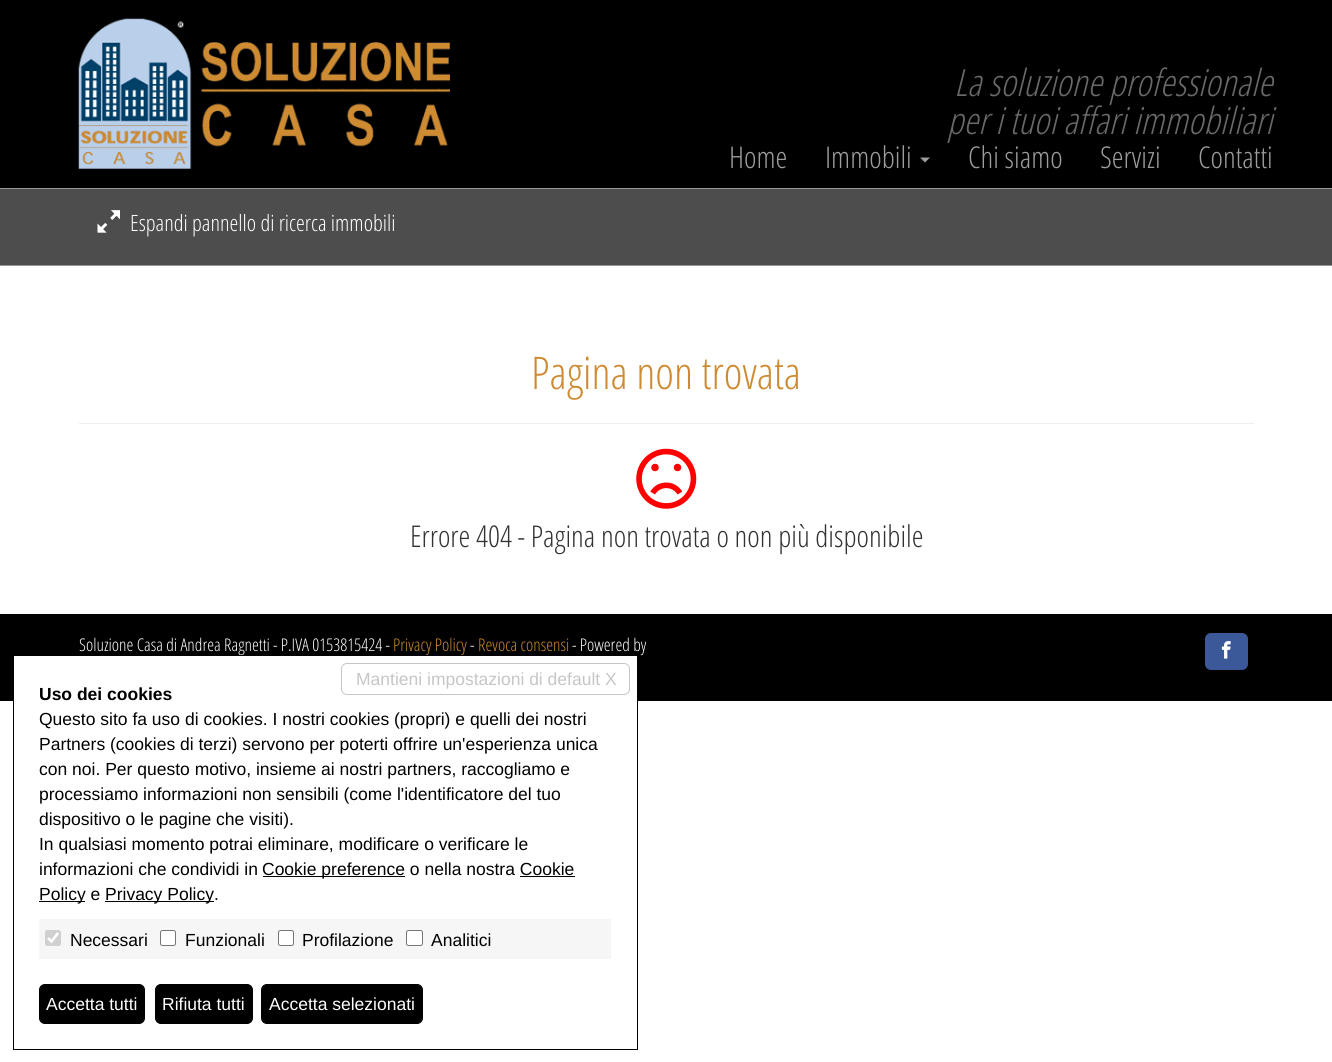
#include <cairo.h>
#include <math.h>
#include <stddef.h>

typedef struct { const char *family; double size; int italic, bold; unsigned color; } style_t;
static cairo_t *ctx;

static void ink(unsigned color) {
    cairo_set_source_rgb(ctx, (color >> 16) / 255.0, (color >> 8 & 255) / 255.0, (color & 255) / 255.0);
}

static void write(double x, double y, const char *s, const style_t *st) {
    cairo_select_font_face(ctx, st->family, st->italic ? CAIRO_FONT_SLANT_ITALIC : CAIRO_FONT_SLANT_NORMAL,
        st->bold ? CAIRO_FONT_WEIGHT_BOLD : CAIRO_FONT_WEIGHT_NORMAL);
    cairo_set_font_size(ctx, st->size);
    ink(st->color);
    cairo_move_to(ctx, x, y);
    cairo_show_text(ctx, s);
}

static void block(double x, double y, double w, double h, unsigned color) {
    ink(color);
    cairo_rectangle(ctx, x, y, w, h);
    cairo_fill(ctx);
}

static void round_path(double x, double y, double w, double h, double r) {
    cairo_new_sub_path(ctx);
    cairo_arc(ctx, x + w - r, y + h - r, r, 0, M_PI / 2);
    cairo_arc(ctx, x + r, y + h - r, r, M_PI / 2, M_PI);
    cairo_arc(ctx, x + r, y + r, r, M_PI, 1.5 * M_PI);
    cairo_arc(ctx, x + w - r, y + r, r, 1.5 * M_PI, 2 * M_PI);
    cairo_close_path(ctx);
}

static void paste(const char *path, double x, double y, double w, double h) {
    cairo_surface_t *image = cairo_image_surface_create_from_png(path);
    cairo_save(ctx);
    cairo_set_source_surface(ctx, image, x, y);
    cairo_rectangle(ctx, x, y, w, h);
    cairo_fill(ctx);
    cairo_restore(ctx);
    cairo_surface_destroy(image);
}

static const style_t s1 = {"Open Sans Condensed Light", 37.5, 1, 0, 0x696969};
static const style_t s2 = {"Open Sans Condensed Light", 30, 0, 0, 0x9d9d9d};
static const style_t s3 = {"Open Sans Condensed Light", 22.5, 0, 0, 0xffffff};
static const style_t s4 = {"Open Sans Condensed Light", 45, 0, 0, 0xce8b32};
static const style_t s5 = {"Open Sans Condensed Light", 30, 0, 0, 0x333333};
static const style_t s6 = {"Open Sans Condensed Light", 17.5, 0, 0, 0xffffff};
static const style_t s7 = {"Open Sans Condensed Light", 17.5, 0, 0, 0xce8b32};
static const style_t s8 = {"Liberation Sans", 17.5, 0, 0, 0xc6c6c6};
static const style_t s9 = {"Liberation Sans", 17.5, 0, 1, 0x000000};
static const style_t s10 = {"Liberation Sans", 17.5, 0, 0, 0x000000};
static const style_t s11 = {"Liberation Sans", 17.5, 0, 0, 0xffffff};

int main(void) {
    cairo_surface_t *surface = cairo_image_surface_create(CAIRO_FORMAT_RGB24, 1332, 1062);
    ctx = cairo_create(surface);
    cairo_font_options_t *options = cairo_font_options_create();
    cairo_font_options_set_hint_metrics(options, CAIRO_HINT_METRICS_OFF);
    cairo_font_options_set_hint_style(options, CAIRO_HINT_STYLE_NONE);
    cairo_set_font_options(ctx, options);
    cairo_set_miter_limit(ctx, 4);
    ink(0xffffff);
    cairo_paint(ctx);
    block(0, 0, 1332, 188, 0x000000);
    block(0, 188, 1332, 1, 0x969696);
    paste("pic1.png", 78, 18, 372, 151);
    write(954, 96, "La soluzione professionale", &s1);
    write(947, 134, "per i tuoi affari immobiliari", &s1);
    write(729, 168, "Home", &s2);
    write(825, 168, "Immobili", &s2);
    cairo_new_path(ctx);
    cairo_move_to(ctx, 920, 157.5);
    cairo_line_to(ctx, 930, 157.5);
    cairo_line_to(ctx, 925, 162.5);
    cairo_close_path(ctx);
    cairo_fill(ctx);
    write(968, 168, "Chi siamo", &s2);
    write(1100, 168, "Servizi", &s2);
    write(1198, 168, "Contatti", &s2);
    block(0, 189, 1332, 76, 0x4d4d4d);
    block(0, 265, 1332, 1, 0x969696);
    paste("pic2.png", 97, 210, 23, 23);
    write(130, 231, "Espandi pannello di ricerca immobili", &s3);
    write(531, 389, "Pagina non trovata", &s4);
    block(79, 423, 1175, 1, 0xeeeeee);
    paste("pic3.png", 636, 448, 61, 61);
    write(410, 547, "Errore 404 - Pagina non trovata o non più disponibile", &s5);
    block(0, 614, 1332, 87, 0x000000);
    write(79, 651, "Soluzione Casa di Andrea Ragnetti - P.IVA 0153815424 -", &s6);
    write(393, 651, "Privacy Policy", &s7);
    write(470, 651, "-", &s6);
    write(478, 651, "Revoca consensi", &s7);
    write(572, 651, "- Powered by", &s6);
    ink(0x3b5998);
    round_path(1205, 633, 43, 37, 6);
    cairo_fill(ctx);
    paste("pic4.png", 1221, 641, 10, 18);
    block(14, 656, 623, 45, 0xffffff);
    cairo_rectangle(ctx, 13.5, 655.5, 624, 394);
    ink(0x000000);
    cairo_set_line_width(ctx, 1);
    cairo_stroke(ctx);
    round_path(341.5, 663.5, 288, 31, 5.5);
    ink(0xc6c6c6);
    cairo_stroke(ctx);
    write(356, 685, "Mantieni impostazioni di default X", &s8);
    write(39, 700, "Uso dei cookies", &s9);
    write(39, 725, "Questo sito fa uso di cookies. I nostri cookies (propri) e quelli dei nostri", &s10);
    write(39, 750, "Partners (cookies di terzi) servono per poterti offrire un'esperienza unica", &s10);
    write(39, 775, "con noi. Per questo motivo, insieme ai nostri partners, raccogliamo e", &s10);
    write(39, 800, "processiamo informazioni non sensibili (come l'identificatore del tuo", &s10);
    write(39, 825, "dispositivo o le pagine che visiti).", &s10);
    write(39, 850, "In qualsiasi momento potrai eliminare, modificare o verificare le", &s10);
    write(39, 875, "informazioni che condividi in", &s10);
    block(263, 876, 142, 1, 0x000000);
    write(262, 875, "Cookie preference o nella nostra Cookie", &s10);
    block(39, 901, 46, 1, 0x000000);
    write(39, 900, "Policy e", &s10);
    block(520, 876, 55, 1, 0x000000);
    block(105, 901, 109, 1, 0x000000);
    write(105, 900, "Privacy Policy.", &s10);
    block(39, 919, 572, 40, 0xf6f6f6);
    ink(0xd0d0d0);
    round_path(45, 930, 16, 16, 2.5);
    cairo_fill(ctx);
    cairo_new_path(ctx);
    cairo_move_to(ctx, 48, 938);
    cairo_line_to(ctx, 51.5, 941.5);
    cairo_line_to(ctx, 58, 933);
    ink(0xffffff);
    cairo_set_line_width(ctx, 2.6);
    cairo_stroke(ctx);
    write(70, 946, "Necessari", &s10);
    ink(0xffffff);
    round_path(160.5, 930.5, 15, 15, 2);
    cairo_fill_preserve(ctx);
    ink(0x767676);
    cairo_set_line_width(ctx, 1);
    cairo_stroke(ctx);
    write(185, 946, "Funzionali", &s10);
    ink(0xffffff);
    round_path(278.5, 930.5, 15, 15, 2);
    cairo_fill_preserve(ctx);
    ink(0x767676);
    cairo_stroke(ctx);
    write(302, 946, "Profilazione", &s10);
    ink(0xffffff);
    round_path(406.5, 930.5, 16, 15, 2);
    cairo_fill_preserve(ctx);
    ink(0x767676);
    cairo_stroke(ctx);
    write(431, 946, "Analitici", &s10);
    round_path(39.5, 984.5, 105, 39, 5.5);
    cairo_fill_preserve(ctx);
    cairo_stroke(ctx);
    write(46, 1010, "Accetta tutti", &s11);
    ink(0x000000);
    round_path(155.5, 984.5, 97, 39, 5.5);
    cairo_fill_preserve(ctx);
    cairo_stroke(ctx);
    write(162, 1010, "Rifiuta tutti", &s11);
    ink(0x000000);
    round_path(261.5, 984.5, 161, 39, 5.5);
    cairo_fill_preserve(ctx);
    cairo_stroke(ctx);
    write(269, 1010, "Accetta selezionati", &s11);
    cairo_surface_write_to_png(surface, "screenshot.png");
    cairo_font_options_destroy(options);
    cairo_destroy(ctx);
    cairo_surface_destroy(surface);
    return 0;
}
